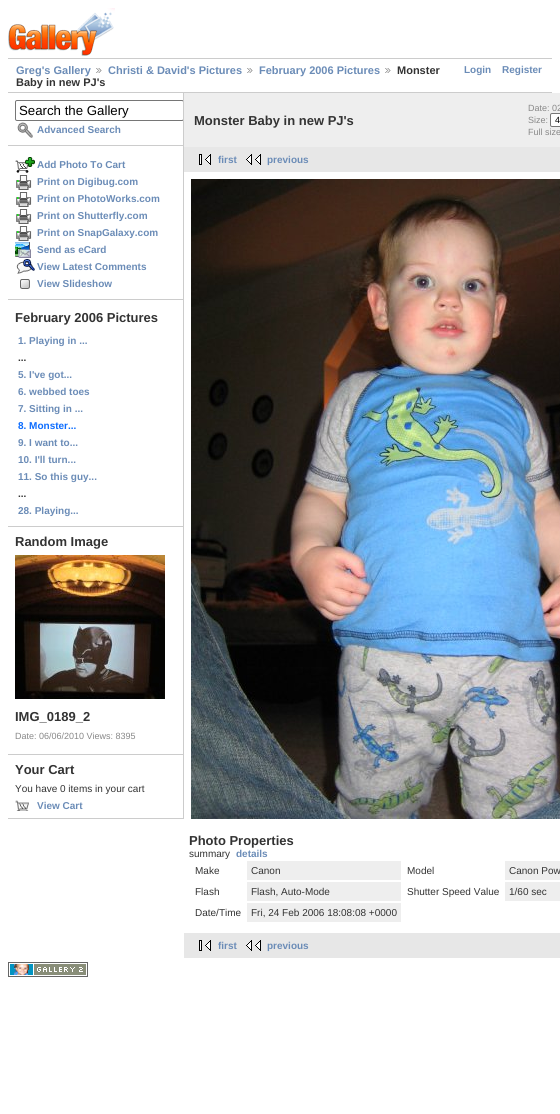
#include <cairo.h>
#include <math.h>
#include <stddef.h>

typedef struct { const char *family; double size; int italic, bold; unsigned color; } style_t;
static cairo_t *ctx;

static void ink(unsigned color) {
    cairo_set_source_rgb(ctx, (color >> 16) / 255.0, (color >> 8 & 255) / 255.0, (color & 255) / 255.0);
}

static void write(double x, double y, const char *s, const style_t *st) {
    cairo_select_font_face(ctx, st->family, st->italic ? CAIRO_FONT_SLANT_ITALIC : CAIRO_FONT_SLANT_NORMAL,
        st->bold ? CAIRO_FONT_WEIGHT_BOLD : CAIRO_FONT_WEIGHT_NORMAL);
    cairo_set_font_size(ctx, st->size);
    ink(st->color);
    cairo_move_to(ctx, x, y);
    cairo_show_text(ctx, s);
}

static void block(double x, double y, double w, double h, unsigned color) {
    ink(color);
    cairo_rectangle(ctx, x, y, w, h);
    cairo_fill(ctx);
}

static void round_path(double x, double y, double w, double h, double r) {
    cairo_new_sub_path(ctx);
    cairo_arc(ctx, x + w - r, y + h - r, r, 0, M_PI / 2);
    cairo_arc(ctx, x + r, y + h - r, r, M_PI / 2, M_PI);
    cairo_arc(ctx, x + r, y + r, r, M_PI, 1.5 * M_PI);
    cairo_arc(ctx, x + w - r, y + r, r, 1.5 * M_PI, 2 * M_PI);
    cairo_close_path(ctx);
}

static void paste(const char *path, double x, double y, double w, double h) {
    cairo_surface_t *image = cairo_image_surface_create_from_png(path);
    cairo_save(ctx);
    cairo_set_source_surface(ctx, image, x, y);
    cairo_rectangle(ctx, x, y, w, h);
    cairo_fill(ctx);
    cairo_restore(ctx);
    cairo_surface_destroy(image);
}

static const style_t s1 = {"Liberation Sans", 11, 0, 1, 0x6b8cb7};
static const style_t s2 = {"Liberation Sans", 11, 0, 1, 0x333333};
static const style_t s3 = {"Liberation Sans", 10, 0, 1, 0x6b8cb7};
static const style_t s4 = {"Liberation Sans", 13.25, 0, 0, 0x000000};
static const style_t s5 = {"Liberation Sans", 13, 0, 1, 0x333333};
static const style_t s6 = {"Liberation Sans", 10, 0, 1, 0x333333};
static const style_t s7 = {"Liberation Sans", 10, 0, 1, 0x0b6cff};
static const style_t s8 = {"Liberation Sans", 9, 0, 0, 0x888888};
static const style_t s9 = {"Liberation Sans", 10, 0, 0, 0x333333};
static const style_t s10 = {"Liberation Sans", 9, 0, 0, 0x000000};

int main(void) {
    cairo_surface_t *surface = cairo_image_surface_create(CAIRO_FORMAT_RGB24, 560, 1114);
    ctx = cairo_create(surface);
    cairo_font_options_t *options = cairo_font_options_create();
    cairo_font_options_set_hint_metrics(options, CAIRO_HINT_METRICS_OFF);
    cairo_font_options_set_hint_style(options, CAIRO_HINT_STYLE_NONE);
    cairo_set_font_options(ctx, options);
    cairo_set_miter_limit(ctx, 4);
    ink(0xffffff);
    cairo_paint(ctx);
    paste("pic1.png", 8, 8, 107, 48);
    block(8, 58, 544, 1, 0xcccccc);
    block(8, 92, 544, 1, 0xcccccc);
    write(16, 74, "Greg's Gallery", &s1);
    paste("pic2.png", 96, 68, 6, 5);
    write(108, 74, "Christi & David's Pictures", &s1);
    paste("pic2.png", 247, 68, 6, 5);
    write(259, 74, "February 2006 Pictures", &s1);
    paste("pic2.png", 385, 68, 6, 5);
    write(397, 74, "Monster", &s2);
    write(16, 86, "Baby in new PJ's", &s2);
    write(464, 73, "Login", &s3);
    write(502, 73, "Register", &s3);
    block(183, 93, 1, 726, 0xcccccc);
    block(8, 145, 175, 1, 0xcccccc);
    cairo_save(ctx);
    cairo_rectangle(ctx, 8, 93, 175, 726);
    cairo_clip(ctx);
    round_path(15.5, 100.5, 168, 20, 1.5);
    ink(0x767676);
    cairo_set_line_width(ctx, 1);
    cairo_stroke(ctx);
    cairo_restore(ctx);
    write(19, 115, "Search the Gallery", &s4);
    paste("pic3.png", 17, 122, 16, 16);
    write(37, 133, "Advanced Search", &s3);
    block(8, 299, 175, 1, 0xcccccc);
    paste("pic4.png", 15, 157, 20, 16);
    write(37, 168, "Add Photo To Cart", &s3);
    paste("pic5.png", 16, 175, 16, 15);
    write(37, 185, "Print on Digibug.com", &s3);
    paste("pic5.png", 16, 192, 16, 15);
    write(37, 202, "Print on PhotoWorks.com", &s3);
    paste("pic5.png", 16, 209, 16, 15);
    write(37, 219, "Print on Shutterfly.com", &s3);
    paste("pic5.png", 16, 226, 16, 15);
    write(37, 236, "Print on SnapGalaxy.com", &s3);
    paste("pic6.png", 15, 242, 16, 16);
    write(37, 253, "Send as eCard", &s3);
    paste("pic7.png", 16, 259, 19, 15);
    write(37, 270, "View Latest Comments", &s3);
    paste("pic8.png", 20, 279, 10, 10);
    write(37, 287, "View Slideshow", &s3);
    block(8, 526, 175, 1, 0xcccccc);
    write(15, 322, "February 2006 Pictures", &s5);
    write(18, 344, "1. Playing in ...", &s3);
    write(18, 361, "...", &s6);
    write(18, 378, "5. I've got...", &s3);
    write(18, 395, "6. webbed toes", &s3);
    write(18, 412, "7. Sitting in ...", &s3);
    write(18, 429, "8. Monster...", &s7);
    write(18, 446, "9. I want to...", &s3);
    write(18, 463, "10. I'll turn...", &s3);
    write(18, 480, "11. So this guy...", &s3);
    write(18, 497, "...", &s6);
    write(18, 514, "28. Playing...", &s3);
    block(8, 754, 175, 1, 0xcccccc);
    write(15, 546, "Random Image", &s5);
    paste("pic9.png", 15, 555, 150, 144);
    write(15, 721, "IMG_0189_2", &s5);
    write(15, 739, "Date: 06/06/2010 Views: 8395", &s8);
    block(8, 818, 175, 1, 0xcccccc);
    write(15, 774, "Your Cart", &s5);
    write(15, 792, "You have 0 items in your cart", &s9);
    paste("pic10.png", 15, 800, 14, 11);
    write(37, 809, "View Cart", &s3);
    block(184, 93, 376, 54, 0xeeeeee);
    write(194, 125, "Monster Baby in new PJ's", &s5);
    write(528, 111, "Date: 02", &s8);
    write(528, 123, "Size:", &s8);
    ink(0xffffff);
    round_path(550.5, 113.5, 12, 13, 1.5);
    cairo_fill_preserve(ctx);
    ink(0x767676);
    cairo_set_line_width(ctx, 1);
    cairo_stroke(ctx);
    write(555, 123, "4", &s10);
    write(528, 135, "Full size", &s8);
    block(184, 147, 376, 25, 0xe7e7e7);
    paste("pic11.png", 199, 154, 12, 11);
    write(218, 163, "first", &s3);
    paste("pic12.png", 246, 154, 15, 11);
    write(267, 163, "previous", &s3);
    paste("pic13.png", 191, 179, 369, 640);
    write(189, 845, "Photo Properties", &s5);
    write(189, 857, "summary", &s9);
    write(236, 857, "details", &s3);
    write(195, 874, "Make", &s9);
    block(247, 861, 154, 19, 0xeeeeee);
    write(251, 874, "Canon", &s9);
    write(407, 874, "Model", &s9);
    block(505, 861, 55, 19, 0xeeeeee);
    write(509, 874, "Canon Pow", &s9);
    write(195, 895, "Flash", &s9);
    block(247, 882, 154, 19, 0xeeeeee);
    write(251, 895, "Flash, Auto-Mode", &s9);
    write(407, 895, "Shutter Speed Value", &s9);
    block(505, 882, 55, 19, 0xeeeeee);
    write(509, 895, "1/60 sec", &s9);
    write(195, 916, "Date/Time", &s9);
    block(247, 903, 154, 19, 0xeeeeee);
    write(251, 916, "Fri, 24 Feb 2006 18:08:08 +0000", &s9);
    block(184, 933, 376, 25, 0xe7e7e7);
    paste("pic11.png", 199, 940, 12, 11);
    write(218, 949, "first", &s3);
    paste("pic12.png", 246, 940, 15, 11);
    write(267, 949, "previous", &s3);
    paste("pic14.png", 8, 962, 80, 15);
    cairo_surface_write_to_png(surface, "screenshot.png");
    cairo_font_options_destroy(options);
    cairo_destroy(ctx);
    cairo_surface_destroy(surface);
    return 0;
}
